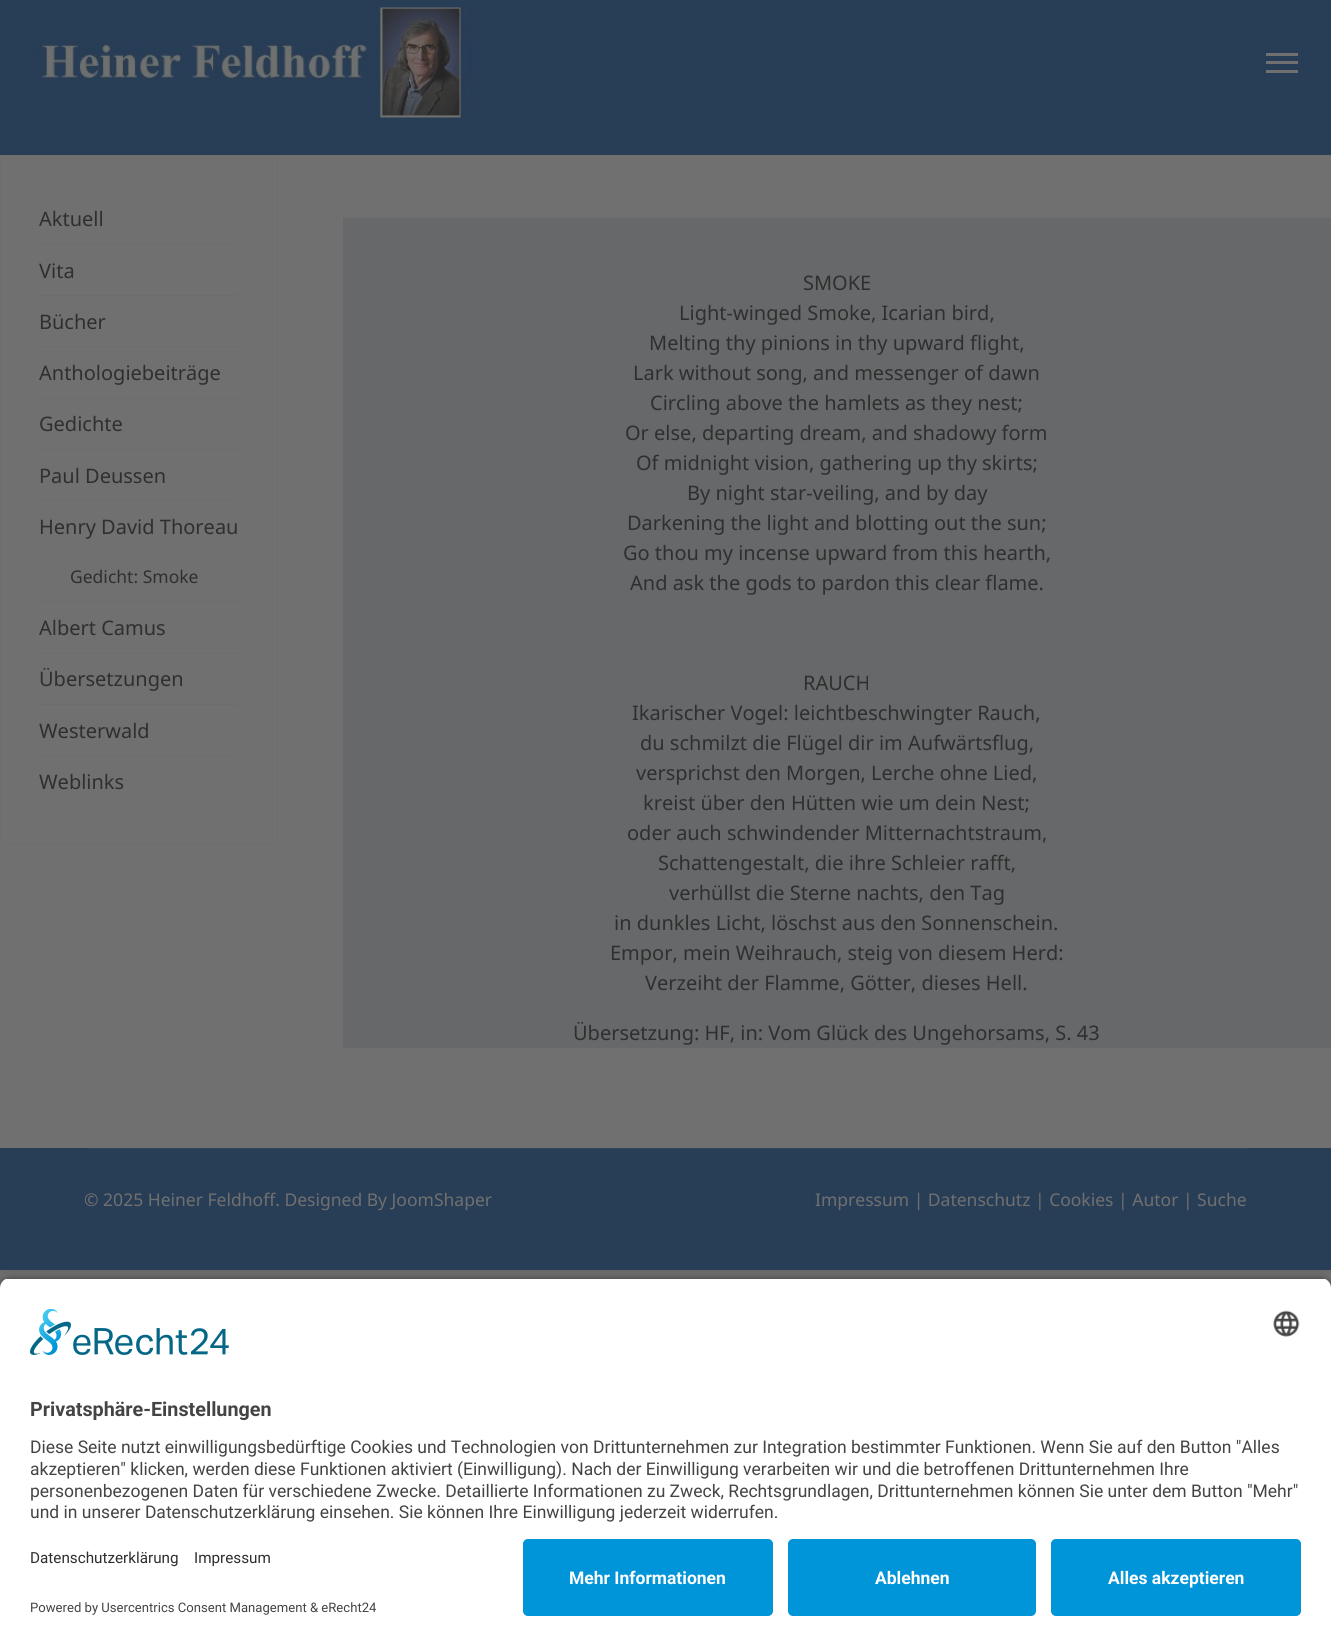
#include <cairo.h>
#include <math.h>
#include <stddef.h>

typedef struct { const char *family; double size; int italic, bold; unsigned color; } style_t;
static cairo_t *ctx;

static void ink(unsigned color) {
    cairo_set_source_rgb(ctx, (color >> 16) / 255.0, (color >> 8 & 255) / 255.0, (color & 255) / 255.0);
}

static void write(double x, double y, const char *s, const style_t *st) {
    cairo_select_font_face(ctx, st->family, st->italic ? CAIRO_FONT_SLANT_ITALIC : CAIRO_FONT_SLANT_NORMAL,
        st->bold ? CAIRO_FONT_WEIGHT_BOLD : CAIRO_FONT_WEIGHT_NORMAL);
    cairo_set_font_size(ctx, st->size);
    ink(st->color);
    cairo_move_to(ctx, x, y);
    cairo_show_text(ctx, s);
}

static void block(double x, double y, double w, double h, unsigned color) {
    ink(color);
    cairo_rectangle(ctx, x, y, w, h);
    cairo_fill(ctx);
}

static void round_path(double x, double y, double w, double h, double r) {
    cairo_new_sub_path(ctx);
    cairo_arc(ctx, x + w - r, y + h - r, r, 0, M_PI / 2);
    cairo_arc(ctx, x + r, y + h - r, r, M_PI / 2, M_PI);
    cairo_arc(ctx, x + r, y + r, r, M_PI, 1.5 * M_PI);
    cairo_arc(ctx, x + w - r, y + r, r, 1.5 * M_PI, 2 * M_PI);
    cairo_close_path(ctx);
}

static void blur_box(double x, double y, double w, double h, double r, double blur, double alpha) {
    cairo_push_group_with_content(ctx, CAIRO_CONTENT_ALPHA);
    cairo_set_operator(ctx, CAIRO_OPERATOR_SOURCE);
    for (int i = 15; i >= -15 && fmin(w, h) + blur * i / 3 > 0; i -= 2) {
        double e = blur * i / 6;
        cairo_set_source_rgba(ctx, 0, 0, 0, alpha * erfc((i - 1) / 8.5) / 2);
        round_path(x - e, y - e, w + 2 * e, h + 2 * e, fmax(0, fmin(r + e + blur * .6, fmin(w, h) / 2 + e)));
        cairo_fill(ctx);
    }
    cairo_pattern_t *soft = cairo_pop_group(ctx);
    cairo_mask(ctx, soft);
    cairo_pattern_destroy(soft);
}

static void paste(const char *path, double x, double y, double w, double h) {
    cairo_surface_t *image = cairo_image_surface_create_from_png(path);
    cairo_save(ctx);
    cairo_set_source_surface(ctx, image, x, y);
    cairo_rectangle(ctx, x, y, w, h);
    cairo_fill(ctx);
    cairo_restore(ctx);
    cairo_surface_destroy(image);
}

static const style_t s1 = {"Noto Sans", 20, 0, 0, 0x2f2f2f};
static const style_t s2 = {"Noto Sans", 17.5, 0, 0, 0x2f2f2f};
static const style_t s3 = {"Noto Sans", 17.5, 0, 0, 0x707070};
static const style_t s4 = {"Roboto", 19.75, 0, 1, 0x444444};
static const style_t s5 = {"Roboto", 17.5, 0, 0, 0x444444};
static const style_t s6 = {"Roboto", 15.25, 0, 0, 0x2f2f2f};
static const style_t s7 = {"Roboto", 13.1, 0, 0, 0x444444};
static const style_t s8 = {"Roboto", 17.5, 0, 1, 0xffffff};

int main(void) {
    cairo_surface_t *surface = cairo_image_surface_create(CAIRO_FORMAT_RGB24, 1331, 1646);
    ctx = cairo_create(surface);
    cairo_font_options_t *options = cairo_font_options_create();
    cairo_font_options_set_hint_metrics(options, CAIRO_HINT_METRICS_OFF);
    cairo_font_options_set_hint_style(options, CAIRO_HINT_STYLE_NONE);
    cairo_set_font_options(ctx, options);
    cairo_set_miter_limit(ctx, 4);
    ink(0x707070);
    cairo_paint(ctx);
    ink(0x242424);
    blur_box(0, 0, 1331, 1270, 0, 3, 0.2);
    block(0, 155, 1331, 993, 0x707070);
    block(0, 0, 1331, 155, 0x283d56);
    paste("pic1.png", 34, 7, 440, 111);
    block(1266, 53, 32, 3, 0x707070);
    block(1266, 61, 32, 3, 0x707070);
    block(1266, 70, 32, 3, 0x707070);
    round_path(0.5, 155.5, 277, 689, 3.5);
    ink(0x6d6d6d);
    cairo_set_line_width(ctx, 1);
    cairo_stroke(ctx);
    block(39, 244, 200, 1, 0x6d6d6d);
    write(39, 226, "Aktuell", &s1);
    block(39, 295, 200, 1, 0x6d6d6d);
    write(39, 278, "Vita", &s1);
    block(39, 346, 200, 1, 0x6d6d6d);
    write(39, 329, "Bücher", &s1);
    block(39, 398, 200, 1, 0x6d6d6d);
    write(39, 380, "Anthologiebeiträge", &s1);
    block(39, 449, 200, 1, 0x6d6d6d);
    write(39, 431, "Gedichte", &s1);
    block(39, 500, 200, 1, 0x6d6d6d);
    write(39, 483, "Paul Deussen", &s1);
    block(39, 601, 200, 1, 0x6d6d6d);
    write(39, 534, "Henry David Thoreau", &s1);
    write(70, 583, "Gedicht: Smoke", &s2);
    block(39, 653, 200, 1, 0x6d6d6d);
    write(39, 635, "Albert Camus", &s1);
    block(39, 704, 200, 1, 0x6d6d6d);
    write(39, 686, "Übersetzungen", &s1);
    block(39, 755, 200, 1, 0x6d6d6d);
    write(39, 738, "Westerwald", &s1);
    write(39, 789, "Weblinks", &s1);
    block(343, 218, 988, 830, 0x666869);
    write(803, 290, "SMOKE", &s1);
    write(679, 320, "Light-winged Smoke, Icarian bird,", &s1);
    write(649, 350, "Melting thy pinions in thy upward flight,", &s1);
    write(633, 380, "Lark without song, and messenger of dawn", &s1);
    write(650, 410, "Circling above the hamlets as they nest;", &s1);
    write(625, 440, "Or else, departing dream, and shadowy form", &s1);
    write(636, 470, "Of midnight vision, gathering up thy skirts;", &s1);
    write(687, 500, "By night star-veiling, and by day", &s1);
    write(627, 530, "Darkening the light and blotting out the sun;", &s1);
    write(623, 560, "Go thou my incense upward from this hearth,", &s1);
    write(630, 590, "And ask the gods to pardon this clear flame.", &s1);
    write(803, 690, "RAUCH", &s1);
    write(632, 720, "Ikarischer Vogel: leichtbeschwingter Rauch,", &s1);
    write(640, 750, "du schmilzt die Flügel dir im Aufwärtsflug,", &s1);
    write(636, 780, "versprichst den Morgen, Lerche ohne Lied,", &s1);
    write(643, 810, "kreist über den Hütten wie um dein Nest;", &s1);
    write(627, 840, "oder auch schwindender Mitternachtstraum,", &s1);
    write(658, 870, "Schattengestalt, die ihre Schleier rafft,", &s1);
    write(669, 900, "verhüllst die Sterne nachts, den Tag", &s1);
    write(614, 930, "in dunkles Licht, löschst aus den Sonnenschein.", &s1);
    write(610, 960, "Empor, mein Weihrauch, steig von diesem Herd:", &s1);
    write(645, 990, "Verzeiht der Flamme, Götter, dieses Hell.", &s1);
    write(573, 1040, "Übersetzung: HF, in: Vom Glück des Ungehorsams, S. 43", &s1);
    block(0, 1148, 1331, 122, 0x283d56);
    block(85, 1148, 1163, 1, 0x2f4259);
    write(84, 1206, "© 2025 Heiner Feldhoff. Designed By JoomShaper", &s3);
    write(815, 1206, "Impressum | Datenschutz | Cookies | Autor | Suche", &s3);
    ink(0x000000);
    blur_box(0, 1281, 1331, 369, 10, 4.5, 0.8);
    cairo_save(ctx);
    cairo_new_path(ctx);
    cairo_move_to(ctx, 10, 1278);
    cairo_line_to(ctx, 1321, 1278);
    cairo_curve_to(ctx, 1326.5, 1278, 1331, 1282.5, 1331, 1288);
    cairo_line_to(ctx, 1331, 1529);
    cairo_line_to(ctx, 0, 1529);
    cairo_line_to(ctx, 0, 1288);
    cairo_curve_to(ctx, 0, 1282.5, 4.5, 1278, 10, 1278);
    cairo_close_path(ctx);
    cairo_clip(ctx);
    block(0, 1279, 1331, 250, 0xffffff);
    cairo_restore(ctx);
    paste("pic2.png", 30, 1309, 199, 46);
    paste("pic3.png", 1273, 1310, 27, 27);
    write(30, 1416, "Privatsphäre-Einstellungen", &s4);
    write(30, 1453, "Diese Seite nutzt einwilligungsbedürftige Cookies und Technologien von Drittunternehmen zur Integration bestimmter Funktionen. Wenn Sie auf den Button \"Alles", &s5);
    write(30, 1475, "akzeptieren\" klicken, werden diese Funktionen aktiviert (Einwilligung). Nach der Einwilligung verarbeiten wir und die betroffenen Drittunternehmen Ihre", &s5);
    write(30, 1497, "personenbezogenen Daten für verschiedene Zwecke. Detaillierte Informationen zu Zweck, Rechtsgrundlagen, Drittunternehmen können Sie unter dem Button \"Mehr\"", &s5);
    write(30, 1518, "und in unserer Datenschutzerklärung einsehen. Sie können Ihre Einwilligung jederzeit widerrufen.", &s5);
    block(0, 1529, 1331, 117, 0xffffff);
    write(30, 1563, "Datenschutzerklärung", &s6);
    write(194, 1563, "Impressum", &s6);
    write(30, 1612, "Powered by Usercentrics Consent Management & eRecht24", &s7);
    ink(0x0094d8);
    round_path(523, 1539, 250, 77, 5);
    cairo_fill(ctx);
    write(569, 1584, "Mehr Informationen", &s8);
    ink(0x0094d8);
    round_path(788, 1539, 248, 77, 5);
    cairo_fill(ctx);
    write(875, 1584, "Ablehnen", &s8);
    ink(0x0094d8);
    round_path(1051, 1539, 250, 77, 5);
    cairo_fill(ctx);
    write(1108, 1584, "Alles akzeptieren", &s8);
    cairo_surface_write_to_png(surface, "screenshot.png");
    cairo_font_options_destroy(options);
    cairo_destroy(ctx);
    cairo_surface_destroy(surface);
    return 0;
}
